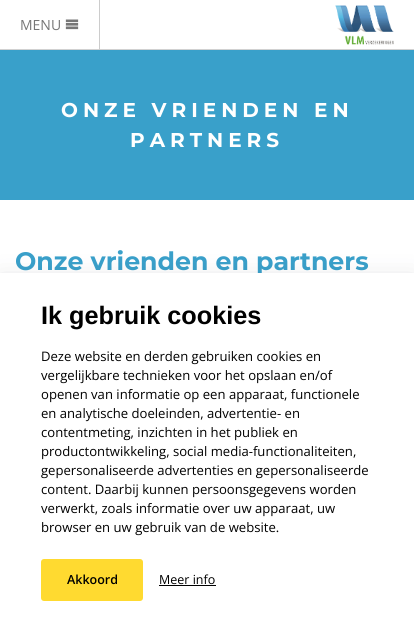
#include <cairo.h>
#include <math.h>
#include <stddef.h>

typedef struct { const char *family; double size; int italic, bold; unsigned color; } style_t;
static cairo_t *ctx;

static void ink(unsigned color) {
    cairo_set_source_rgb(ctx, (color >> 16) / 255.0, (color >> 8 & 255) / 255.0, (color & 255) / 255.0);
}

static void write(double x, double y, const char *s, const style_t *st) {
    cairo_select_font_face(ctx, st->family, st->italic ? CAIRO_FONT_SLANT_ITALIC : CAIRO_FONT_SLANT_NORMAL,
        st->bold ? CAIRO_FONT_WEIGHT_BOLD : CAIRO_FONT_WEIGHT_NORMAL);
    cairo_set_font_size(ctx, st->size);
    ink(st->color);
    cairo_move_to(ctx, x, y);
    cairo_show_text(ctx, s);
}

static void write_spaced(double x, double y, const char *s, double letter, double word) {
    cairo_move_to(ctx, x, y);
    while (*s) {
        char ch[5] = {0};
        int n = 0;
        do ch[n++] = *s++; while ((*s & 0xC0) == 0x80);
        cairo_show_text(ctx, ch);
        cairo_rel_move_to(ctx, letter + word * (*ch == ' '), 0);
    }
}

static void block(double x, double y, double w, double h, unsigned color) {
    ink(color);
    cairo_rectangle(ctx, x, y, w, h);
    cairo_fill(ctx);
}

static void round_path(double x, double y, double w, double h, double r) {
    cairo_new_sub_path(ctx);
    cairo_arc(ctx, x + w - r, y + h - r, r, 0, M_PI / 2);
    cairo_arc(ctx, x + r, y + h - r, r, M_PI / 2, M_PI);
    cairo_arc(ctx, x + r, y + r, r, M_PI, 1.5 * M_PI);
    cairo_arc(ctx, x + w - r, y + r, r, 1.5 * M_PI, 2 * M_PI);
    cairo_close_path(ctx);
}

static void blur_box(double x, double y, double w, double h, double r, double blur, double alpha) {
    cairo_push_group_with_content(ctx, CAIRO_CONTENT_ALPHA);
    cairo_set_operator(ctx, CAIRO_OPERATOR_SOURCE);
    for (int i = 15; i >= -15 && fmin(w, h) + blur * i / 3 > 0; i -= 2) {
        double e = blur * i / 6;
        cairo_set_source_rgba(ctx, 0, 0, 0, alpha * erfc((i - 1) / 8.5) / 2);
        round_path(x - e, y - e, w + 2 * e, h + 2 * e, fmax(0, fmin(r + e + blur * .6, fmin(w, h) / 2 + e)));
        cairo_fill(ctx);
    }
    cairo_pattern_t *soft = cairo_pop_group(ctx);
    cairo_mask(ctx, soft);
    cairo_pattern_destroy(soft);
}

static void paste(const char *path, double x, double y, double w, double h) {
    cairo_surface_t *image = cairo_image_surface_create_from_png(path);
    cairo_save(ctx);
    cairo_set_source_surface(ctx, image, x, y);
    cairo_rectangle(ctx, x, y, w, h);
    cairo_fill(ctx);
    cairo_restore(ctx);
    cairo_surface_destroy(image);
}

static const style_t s1 = {"Open Sans", 14, 0, 0, 0x777777};
static const style_t s2 = {"Montserrat Thin", 25.25, 0, 0, 0x39a0ca};
static const style_t s3 = {"Liberation Sans", 25.25, 0, 1, 0x000000};
static const style_t s4 = {"Open Sans", 13.1, 0, 0, 0x000000};
static const style_t s5 = {"Open Sans SemiBold", 12.5, 0, 0, 0x000000};
static const style_t s6 = {"Open Sans", 12.5, 0, 0, 0x000000};

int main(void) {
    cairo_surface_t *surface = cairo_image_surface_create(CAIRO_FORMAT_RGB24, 414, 635);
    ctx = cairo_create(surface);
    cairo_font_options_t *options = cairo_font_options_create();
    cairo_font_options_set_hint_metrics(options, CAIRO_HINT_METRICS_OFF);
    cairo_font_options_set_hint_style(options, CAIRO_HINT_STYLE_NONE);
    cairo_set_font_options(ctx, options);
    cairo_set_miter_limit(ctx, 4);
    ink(0xffffff);
    cairo_paint(ctx);
    block(0, 49, 414, 1, 0xd1d1d1);
    block(99, 0, 1, 50, 0xcccccc);
    write(20, 30, "MENU", &s1);
    paste("pic1.png", 65, 19, 14, 11);
    paste("pic2.png", 335, 5, 59, 40);
    block(0, 50, 414, 150, 0x39a0ca);
    cairo_select_font_face(ctx, "Montserrat Thin", CAIRO_FONT_SLANT_NORMAL, CAIRO_FONT_WEIGHT_NORMAL);
    cairo_set_font_size(ctx, 20);
    ink(0xffffff);
    write_spaced(61, 117, "ONZE VRIENDEN EN", 5, 0);
    write_spaced(130, 147, "PARTNERS", 5, 0);
    write(15, 270, "Onze vrienden en partners", &s2);
    ink(0x393e48);
    blur_box(0, 282, 414, 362, 0, 13, 0.22);
    block(0, 273, 414, 362, 0xffffff);
    write(41, 324, "Ik gebruik cookies", &s3);
    write(41, 361, "Deze website en derden gebruiken cookies en", &s4);
    write(41, 380, "vergelijkbare technieken voor het opslaan en/of", &s4);
    write(41, 399, "openen van informatie op een apparaat, functionele", &s4);
    write(41, 418, "en analytische doeleinden, advertentie- en", &s4);
    write(41, 437, "contentmeting, inzichten in het publiek en", &s4);
    write(41, 456, "productontwikkeling, social media-functionaliteiten,", &s4);
    write(41, 475, "gepersonaliseerde advertenties en gepersonaliseerde", &s4);
    write(41, 494, "content. Daarbij kunnen persoonsgegevens worden", &s4);
    write(41, 513, "verwerkt, zoals informatie over uw apparaat, uw", &s4);
    write(41, 532, "browser en uw gebruik van de website.", &s4);
    ink(0xffda30);
    round_path(41, 559, 102, 42, 3);
    cairo_fill(ctx);
    write(67, 584, "Akkoord", &s5);
    write(159, 584, "Meer info", &s6);
    block(159, 585, 57, 1, 0x000000);
    cairo_surface_write_to_png(surface, "screenshot.png");
    cairo_font_options_destroy(options);
    cairo_destroy(ctx);
    cairo_surface_destroy(surface);
    return 0;
}
